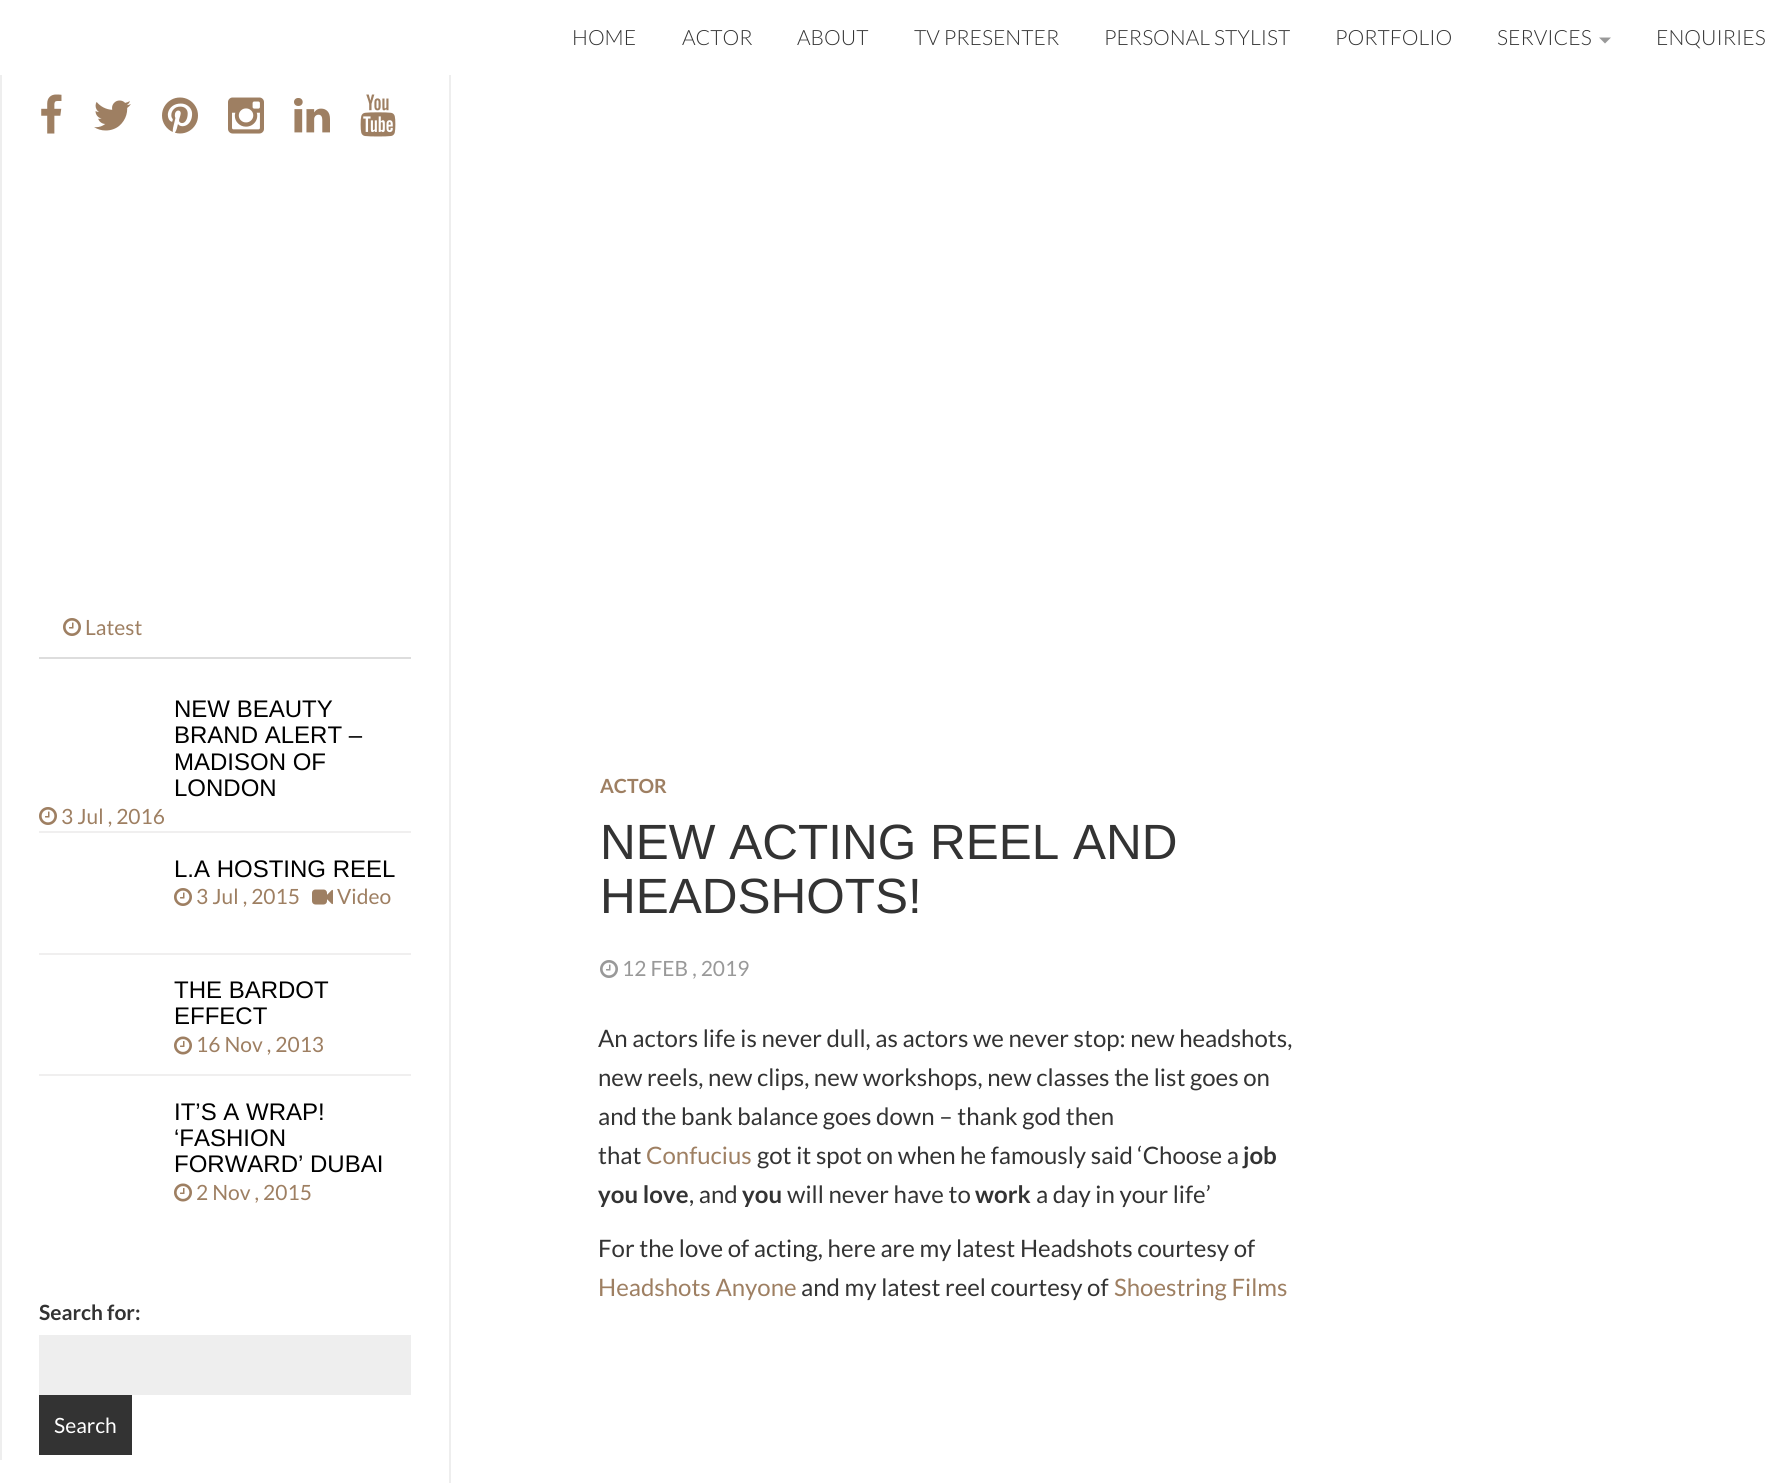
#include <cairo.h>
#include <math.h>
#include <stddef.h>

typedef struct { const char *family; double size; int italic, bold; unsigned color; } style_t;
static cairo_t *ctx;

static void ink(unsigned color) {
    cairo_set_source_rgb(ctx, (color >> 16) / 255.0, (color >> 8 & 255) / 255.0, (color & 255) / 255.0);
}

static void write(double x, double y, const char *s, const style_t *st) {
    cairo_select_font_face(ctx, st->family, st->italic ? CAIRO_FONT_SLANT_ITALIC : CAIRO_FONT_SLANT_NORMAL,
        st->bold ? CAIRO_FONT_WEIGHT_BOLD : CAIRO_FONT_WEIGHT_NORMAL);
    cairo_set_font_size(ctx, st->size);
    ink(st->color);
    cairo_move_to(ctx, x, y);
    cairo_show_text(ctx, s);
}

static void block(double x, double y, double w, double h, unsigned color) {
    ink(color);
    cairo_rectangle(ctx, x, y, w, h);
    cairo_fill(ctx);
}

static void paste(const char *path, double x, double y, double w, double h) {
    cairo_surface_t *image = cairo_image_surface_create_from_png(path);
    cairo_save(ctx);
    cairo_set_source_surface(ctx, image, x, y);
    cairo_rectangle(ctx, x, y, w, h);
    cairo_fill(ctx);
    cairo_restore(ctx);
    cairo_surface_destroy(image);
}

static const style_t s1 = {"Lato Light", 21, 0, 0, 0x333333};
static const style_t s2 = {"Lato", 21, 0, 0, 0x9e7f62};
static const style_t s3 = {"Liberation Sans", 24, 0, 0, 0x000000};
static const style_t s4 = {"Lato", 21, 0, 1, 0x333333};
static const style_t s5 = {"Lato", 21, 0, 0, 0xffffff};
static const style_t s6 = {"Lato", 19.5, 0, 1, 0x9e7f62};
static const style_t s7 = {"Liberation Sans", 49.5, 0, 0, 0x333333};
static const style_t s8 = {"Lato", 21, 0, 0, 0x999999};
static const style_t s9 = {"Lato", 24, 0, 0, 0x333333};
static const style_t s10 = {"Lato", 24, 0, 0, 0x9e7f62};
static const style_t s11 = {"Lato", 24, 0, 1, 0x333333};

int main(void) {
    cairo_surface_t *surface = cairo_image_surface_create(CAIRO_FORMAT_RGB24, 1787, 1483);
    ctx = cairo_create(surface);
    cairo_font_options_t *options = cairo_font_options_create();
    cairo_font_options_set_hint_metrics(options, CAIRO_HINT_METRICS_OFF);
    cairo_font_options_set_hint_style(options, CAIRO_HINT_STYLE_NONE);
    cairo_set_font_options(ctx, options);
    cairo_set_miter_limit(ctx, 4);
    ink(0xffffff);
    cairo_paint(ctx);
    block(0, 75, 2, 1385, 0xeeeeee);
    write(572, 45, "HOME", &s1);
    write(682, 45, "ACTOR", &s1);
    write(797, 45, "ABOUT", &s1);
    write(914, 45, "TV PRESENTER", &s1);
    write(1104, 45, "PERSONAL STYLIST", &s1);
    write(1335, 45, "PORTFOLIO", &s1);
    write(1497, 45, "SERVICES", &s1);
    ink(0x999999);
    cairo_new_path(ctx);
    cairo_move_to(ctx, 1599, 37.5);
    cairo_line_to(ctx, 1611, 37.5);
    cairo_line_to(ctx, 1605, 43.5);
    cairo_close_path(ctx);
    cairo_fill(ctx);
    write(1656, 45, "ENQUIRIES", &s1);
    paste("pic1.png", 41, 94, 21, 40);
    paste("pic2.png", 94, 100, 37, 31);
    paste("pic3.png", 162, 97, 36, 37);
    paste("pic4.png", 228, 97, 36, 37);
    paste("pic5.png", 294, 98, 36, 35);
    paste("pic6.png", 360, 94, 36, 43);
    block(39, 657, 372, 2, 0xdddddd);
    paste("pic7.png", 63, 618, 18, 18);
    write(85, 635, "Latest", &s2);
    block(39, 831, 372, 2, 0xf0efef);
    write(174, 717, "NEW BEAUTY", &s3);
    write(174, 743, "BRAND ALERT –", &s3);
    write(174, 770, "MADISON OF", &s3);
    write(174, 796, "LONDON", &s3);
    paste("pic7.png", 39, 807, 18, 18);
    write(61, 824, "3 Jul , 2016", &s2);
    block(39, 953, 372, 2, 0xf0efef);
    write(174, 877, "L.A HOSTING REEL", &s3);
    paste("pic7.png", 174, 888, 18, 18);
    write(196, 904, "3 Jul , 2015", &s2);
    paste("pic8.png", 312, 889, 21, 16);
    write(337, 904, "Video", &s2);
    block(39, 1074, 372, 2, 0xf0efef);
    write(174, 998, "THE BARDOT", &s3);
    write(174, 1024, "EFFECT", &s3);
    paste("pic9.png", 174, 1036, 18, 19);
    write(196, 1052, "16 Nov , 2013", &s2);
    write(174, 1120, "IT’S A WRAP!", &s3);
    write(174, 1146, "‘FASHION", &s3);
    write(174, 1172, "FORWARD’ DUBAI", &s3);
    paste("pic9.png", 174, 1183, 18, 19);
    write(196, 1200, "2 Nov , 2015", &s2);
    write(39, 1320, "Search for:", &s4);
    block(39, 1335, 372, 60, 0xeeeeee);
    block(39, 1395, 93, 60, 0x333333);
    write(54, 1433, "Search", &s5);
    block(449, 75, 2, 1408, 0xeeeeee);
    write(600, 793, "ACTOR", &s6);
    write(600, 859, "NEW ACTING REEL AND", &s7);
    write(600, 913, "HEADSHOTS!", &s7);
    paste("pic10.png", 600, 960, 18, 18);
    write(622, 976, "12 FEB , 2019", &s8);
    write(598, 1047, "An actors life is never dull, as actors we never stop: new headshots,", &s9);
    write(598, 1086, "new reels, new clips, new workshops, new classes the list goes on", &s9);
    write(598, 1125, "and the bank balance goes down – thank god then", &s9);
    write(598, 1164, "that", &s9);
    write(646, 1164, "Confucius", &s10);
    write(757, 1164, "got it spot on when he famously said ‘Choose a", &s9);
    write(1243, 1164, "job", &s11);
    write(598, 1203, "you love", &s11);
    write(689, 1203, ", and", &s9);
    write(742, 1203, "you", &s11);
    write(787, 1203, "will never have to", &s9);
    write(975, 1203, "work", &s11);
    write(1036, 1203, "a day in your life’", &s9);
    write(598, 1257, "For the love of acting, here are my latest Headshots courtesy of", &s9);
    write(598, 1296, "Headshots Anyone", &s10);
    write(801, 1296, "and my latest reel courtesy of", &s9);
    write(1114, 1296, "Shoestring Films", &s10);
    cairo_surface_write_to_png(surface, "screenshot.png");
    cairo_font_options_destroy(options);
    cairo_destroy(ctx);
    cairo_surface_destroy(surface);
    return 0;
}
